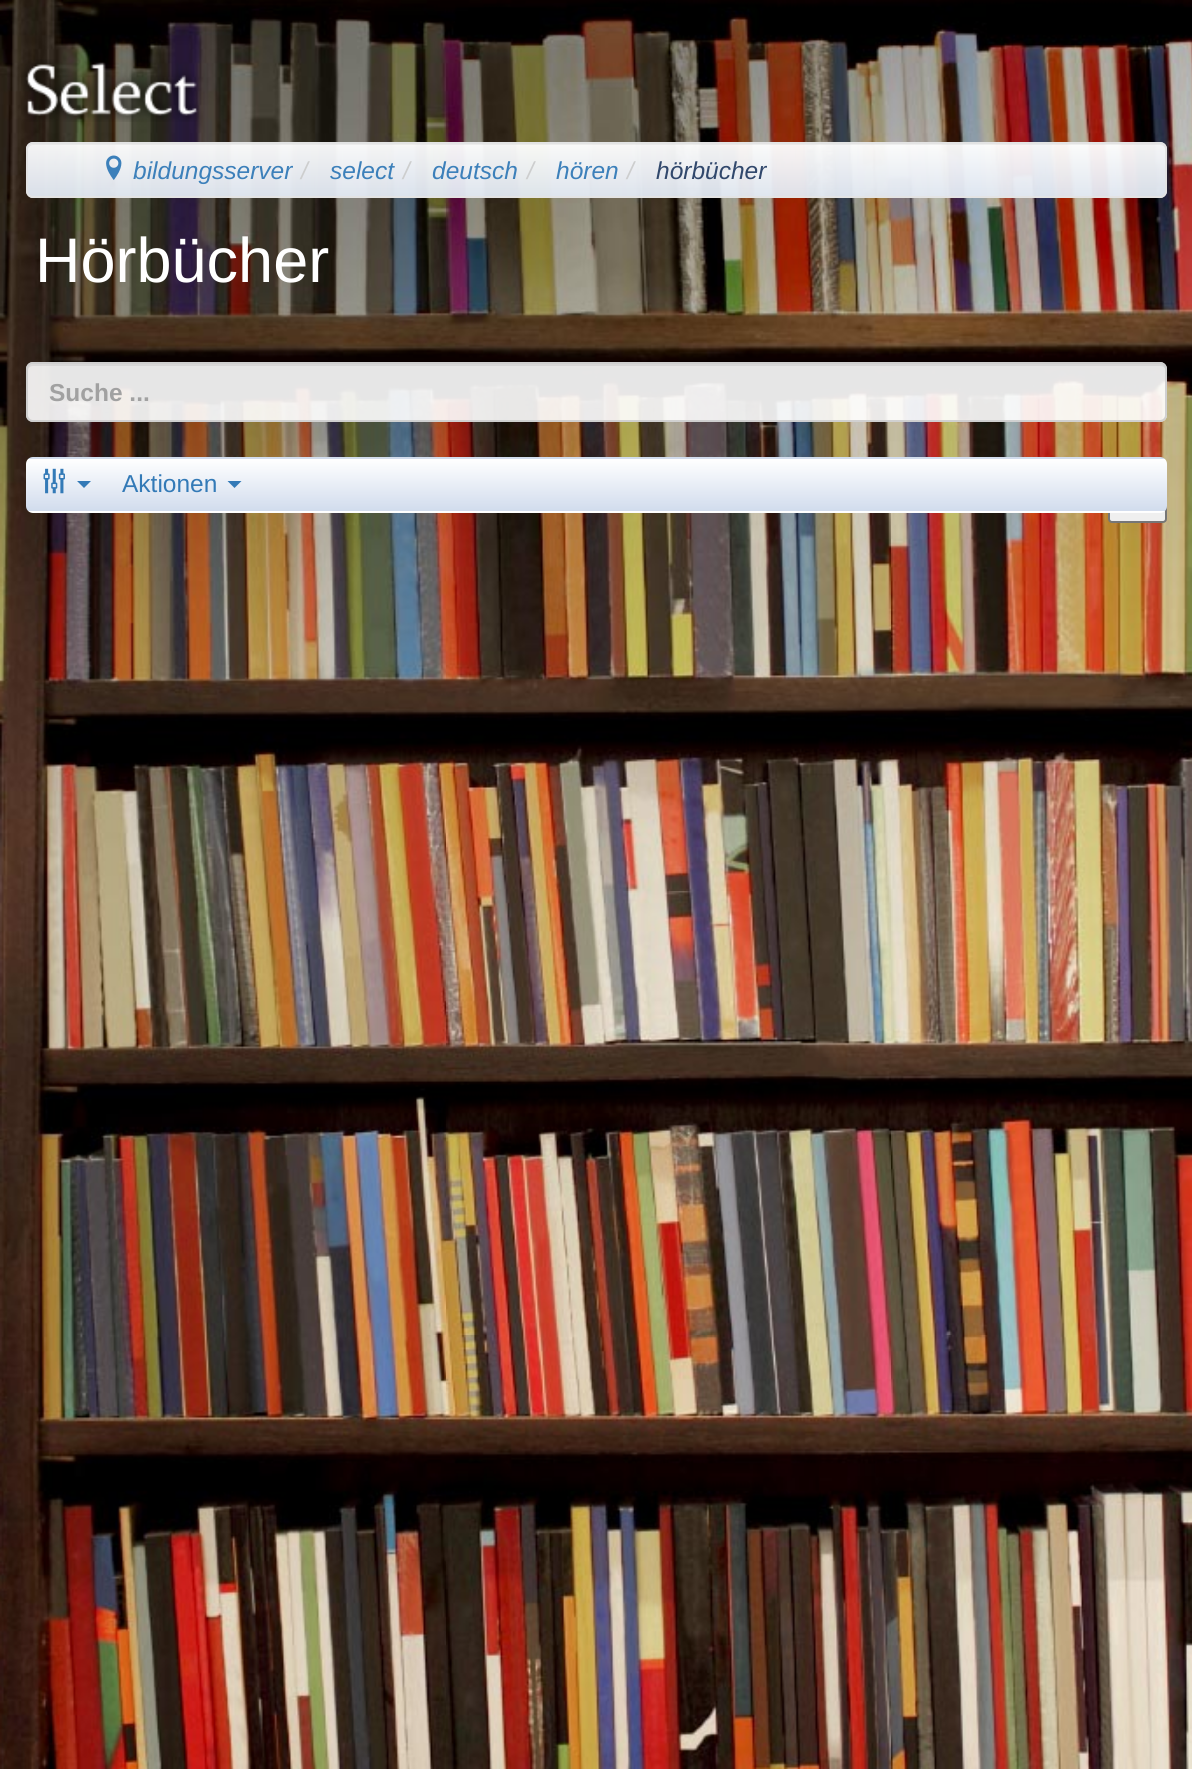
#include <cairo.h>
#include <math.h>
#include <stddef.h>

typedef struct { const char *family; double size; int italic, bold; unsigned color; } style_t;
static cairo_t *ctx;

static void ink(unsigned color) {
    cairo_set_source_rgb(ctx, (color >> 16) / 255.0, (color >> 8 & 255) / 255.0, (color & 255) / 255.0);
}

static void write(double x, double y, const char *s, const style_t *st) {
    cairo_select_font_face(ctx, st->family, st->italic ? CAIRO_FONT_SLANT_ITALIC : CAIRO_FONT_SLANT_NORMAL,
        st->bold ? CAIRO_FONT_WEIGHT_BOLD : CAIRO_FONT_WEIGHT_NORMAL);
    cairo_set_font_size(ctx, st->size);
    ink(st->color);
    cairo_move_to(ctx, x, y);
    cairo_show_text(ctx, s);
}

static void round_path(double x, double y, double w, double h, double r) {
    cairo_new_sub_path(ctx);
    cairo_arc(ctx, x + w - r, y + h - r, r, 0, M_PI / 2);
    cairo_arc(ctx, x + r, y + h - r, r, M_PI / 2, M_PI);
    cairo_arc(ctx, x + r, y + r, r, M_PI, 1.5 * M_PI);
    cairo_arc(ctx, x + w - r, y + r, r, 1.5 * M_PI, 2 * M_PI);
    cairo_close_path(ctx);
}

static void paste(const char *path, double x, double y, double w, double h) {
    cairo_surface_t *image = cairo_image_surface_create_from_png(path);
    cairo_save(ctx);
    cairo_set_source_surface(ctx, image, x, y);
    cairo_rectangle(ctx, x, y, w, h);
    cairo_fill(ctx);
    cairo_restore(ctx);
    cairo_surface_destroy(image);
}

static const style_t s1 = {"Liberation Sans", 24.5, 1, 0, 0x3c80ba};
static const style_t s2 = {"Liberation Sans", 24.5, 1, 0, 0xcdcece};
static const style_t s3 = {"Liberation Sans", 24.5, 1, 0, 0x31486c};
static const style_t s4 = {"Liberation Sans", 63, 0, 0, 0xffffff};
static const style_t s5 = {"Liberation Sans", 24.5, 0, 1, 0xa1a1a1};
static const style_t s6 = {"Liberation Sans", 24.5, 0, 0, 0x337ab7};

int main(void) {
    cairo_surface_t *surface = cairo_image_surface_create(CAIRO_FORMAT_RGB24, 1192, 1769);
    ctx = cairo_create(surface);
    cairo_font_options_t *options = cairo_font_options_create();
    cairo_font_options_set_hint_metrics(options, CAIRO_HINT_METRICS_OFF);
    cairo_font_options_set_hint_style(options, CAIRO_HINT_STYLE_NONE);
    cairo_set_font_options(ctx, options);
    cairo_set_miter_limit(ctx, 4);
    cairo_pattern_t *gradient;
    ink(0xffffff);
    cairo_paint(ctx);
    paste("pic1.png", 0, 0, 1192, 1769);
    paste("pic2.png", 21, 59, 178, 63);
    cairo_set_source_rgba(ctx, 0, 0, 0, 0.05);
    cairo_new_path(ctx);
    cairo_move_to(ctx, 33, 145);
    cairo_line_to(ctx, 1160, 145);
    cairo_curve_to(ctx, 1163, 145, 1166, 148, 1166, 150);
    cairo_curve_to(ctx, 1166, 147, 1164, 144, 1161, 144);
    cairo_line_to(ctx, 33, 144);
    cairo_curve_to(ctx, 30, 144, 28, 147, 28, 150);
    cairo_curve_to(ctx, 28, 148, 30, 145, 33, 145);
    cairo_close_path(ctx);
    cairo_fill(ctx);
    round_path(27, 143, 1139, 54, 6);
    cairo_set_source_rgba(ctx, 0.89, 0.89, 0.89, 0.95);
    cairo_stroke(ctx);
    paste("pic3.png", 106, 155, 16, 25);
    write(133, 179, "bildungsserver", &s1);
    write(301, 179, "/", &s2);
    write(330, 179, "select", &s1);
    write(403, 179, "/", &s2);
    write(432, 179, "deutsch", &s1);
    write(527, 179, "/", &s2);
    write(556, 179, "hören", &s1);
    write(627, 179, "/", &s2);
    write(656, 179, "hörbücher", &s3);
    write(35, 282, "Hörbücher", &s4);
    cairo_set_source_rgba(ctx, 1, 1, 1, 0.9);
    round_path(26, 362, 1141, 60, 7);
    cairo_fill(ctx);
    cairo_set_source_rgba(ctx, 0, 0, 0, 0.07);
    cairo_new_path(ctx);
    cairo_move_to(ctx, 33, 366);
    cairo_line_to(ctx, 1160, 366);
    cairo_curve_to(ctx, 1163, 366, 1166, 368, 1166, 371);
    cairo_line_to(ctx, 1166, 369);
    cairo_curve_to(ctx, 1166, 366, 1164, 364, 1161, 364);
    cairo_line_to(ctx, 33, 364);
    cairo_curve_to(ctx, 30, 364, 28, 366, 28, 369);
    cairo_line_to(ctx, 28, 371);
    cairo_curve_to(ctx, 28, 368, 30, 366, 33, 366);
    cairo_close_path(ctx);
    cairo_fill(ctx);
    round_path(27, 363, 1139, 58, 6);
    cairo_set_source_rgba(ctx, 0.8, 0.8, 0.8, 0.9);
    cairo_stroke(ctx);
    write(49, 401, "Suche ...", &s5);
    cairo_save(ctx);
    round_path(26, 457, 1141, 56, 7);
    cairo_clip(ctx);
    gradient = cairo_pattern_create_linear(28, 459, 28, 406);
    cairo_pattern_add_color_stop_rgba(gradient, 0, 0.82, 0.863, 0.929, 1);
    cairo_pattern_add_color_stop_rgba(gradient, 1, 1, 1, 1, 1);
    cairo_set_source(ctx, gradient);
    cairo_pattern_destroy(gradient);
    cairo_rectangle(ctx, 26, 457, 1141, 2);
    cairo_fill(ctx);
    cairo_restore(ctx);
    ink(0xefefef);
    round_path(1109, 465, 57, 57, 3);
    cairo_fill_preserve(ctx);
    ink(0x767676);
    cairo_stroke(ctx);
    cairo_save(ctx);
    round_path(26, 457, 1141, 56, 7);
    cairo_clip(ctx);
    gradient = cairo_pattern_create_linear(28, 511, 28, 459);
    cairo_pattern_add_color_stop_rgba(gradient, 0, 0.82, 0.863, 0.929, 1);
    cairo_pattern_add_color_stop_rgba(gradient, 1, 1, 1, 1, 1);
    cairo_set_source(ctx, gradient);
    cairo_pattern_destroy(gradient);
    cairo_rectangle(ctx, 26, 459, 1141, 52);
    cairo_fill(ctx);
    gradient = cairo_pattern_create_linear(28, 564, 28, 511);
    cairo_pattern_add_color_stop_rgba(gradient, 0, 0.82, 0.863, 0.929, 1);
    cairo_pattern_add_color_stop_rgba(gradient, 1, 1, 1, 1, 1);
    cairo_set_source(ctx, gradient);
    cairo_pattern_destroy(gradient);
    cairo_rectangle(ctx, 26, 511, 1141, 2);
    cairo_fill(ctx);
    cairo_restore(ctx);
    paste("pic4.png", 43, 468, 22, 26);
    ink(0x337ab7);
    cairo_new_path(ctx);
    cairo_move_to(ctx, 77, 481);
    cairo_line_to(ctx, 91, 481);
    cairo_line_to(ctx, 84, 488);
    cairo_close_path(ctx);
    cairo_fill(ctx);
    write(122, 492, "Aktionen", &s6);
    cairo_new_path(ctx);
    cairo_move_to(ctx, 227.5, 481);
    cairo_line_to(ctx, 241.5, 481);
    cairo_line_to(ctx, 234.5, 488);
    cairo_close_path(ctx);
    cairo_fill(ctx);
    cairo_surface_write_to_png(surface, "screenshot.png");
    cairo_font_options_destroy(options);
    cairo_destroy(ctx);
    cairo_surface_destroy(surface);
    return 0;
}
